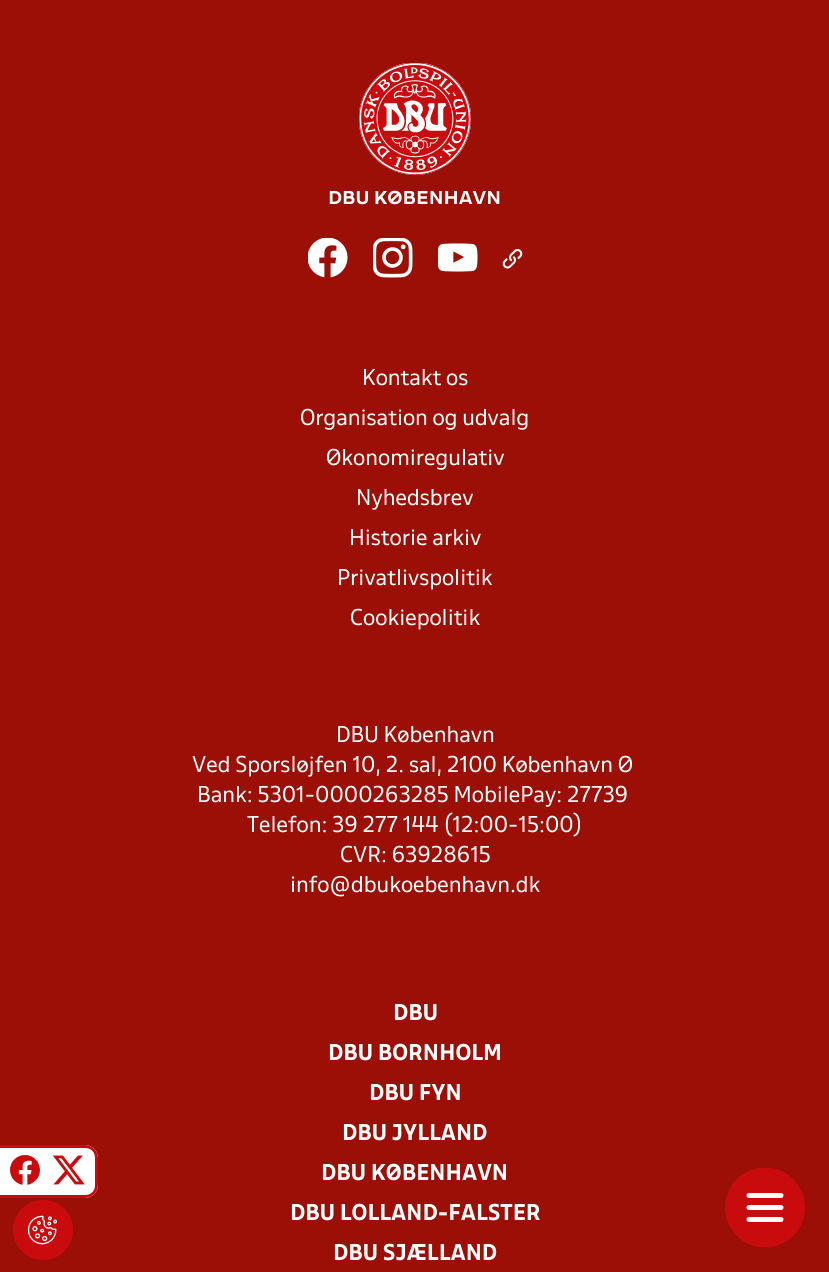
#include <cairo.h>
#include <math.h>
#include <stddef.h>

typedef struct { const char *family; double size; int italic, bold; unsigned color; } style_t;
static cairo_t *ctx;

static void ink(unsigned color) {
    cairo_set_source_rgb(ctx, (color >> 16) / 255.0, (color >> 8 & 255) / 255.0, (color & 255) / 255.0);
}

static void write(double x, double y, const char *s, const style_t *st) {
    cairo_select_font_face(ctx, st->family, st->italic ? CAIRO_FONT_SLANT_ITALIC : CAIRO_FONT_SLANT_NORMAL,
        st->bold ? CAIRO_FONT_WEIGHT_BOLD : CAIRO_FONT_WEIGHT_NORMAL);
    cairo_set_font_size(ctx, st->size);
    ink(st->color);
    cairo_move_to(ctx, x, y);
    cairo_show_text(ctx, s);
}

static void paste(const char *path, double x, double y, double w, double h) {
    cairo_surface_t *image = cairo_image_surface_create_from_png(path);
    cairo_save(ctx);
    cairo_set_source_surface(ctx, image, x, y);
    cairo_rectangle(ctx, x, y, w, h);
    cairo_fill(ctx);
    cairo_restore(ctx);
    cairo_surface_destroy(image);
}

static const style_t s1 = {"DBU", 16.25, 0, 1, 0xffffff};
static const style_t s2 = {"DBU", 20, 0, 0, 0xffffff};
static const style_t s3 = {"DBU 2", 20, 0, 1, 0xffffff};

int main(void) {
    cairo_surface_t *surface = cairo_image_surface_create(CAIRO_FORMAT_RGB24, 829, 1272);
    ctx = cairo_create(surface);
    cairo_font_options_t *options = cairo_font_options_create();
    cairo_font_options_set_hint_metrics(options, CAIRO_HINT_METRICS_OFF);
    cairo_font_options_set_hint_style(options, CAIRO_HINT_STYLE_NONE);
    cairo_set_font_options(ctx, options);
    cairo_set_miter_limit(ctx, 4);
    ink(0x9c0f06);
    cairo_paint(ctx);
    ink(0xffffff);
    cairo_new_path(ctx);
    cairo_move_to(ctx, 0, 1145);
    cairo_line_to(ctx, 85, 1145);
    cairo_curve_to(ctx, 92, 1145, 98, 1151, 98, 1158);
    cairo_line_to(ctx, 98, 1185);
    cairo_curve_to(ctx, 98, 1192, 92, 1198, 85, 1198);
    cairo_line_to(ctx, 0, 1198);
    cairo_close_path(ctx);
    cairo_fill(ctx);
    ink(0xc90b0e);
    cairo_set_fill_rule(ctx, CAIRO_FILL_RULE_EVEN_ODD);
    cairo_new_path(ctx);
    cairo_move_to(ctx, 0, 1145);
    cairo_line_to(ctx, 85, 1145);
    cairo_curve_to(ctx, 92, 1145, 98, 1151, 98, 1158);
    cairo_line_to(ctx, 98, 1185);
    cairo_curve_to(ctx, 98, 1192, 92, 1198, 85, 1198);
    cairo_line_to(ctx, 0, 1198);
    cairo_close_path(ctx);
    cairo_move_to(ctx, 0, 1148);
    cairo_line_to(ctx, 85, 1148);
    cairo_curve_to(ctx, 91, 1148, 95, 1152, 95, 1158);
    cairo_line_to(ctx, 95, 1185);
    cairo_curve_to(ctx, 95, 1191, 91, 1195, 85, 1195);
    cairo_line_to(ctx, 0, 1195);
    cairo_close_path(ctx);
    cairo_fill(ctx);
    paste("pic1.png", 10, 1155, 30, 30);
    paste("pic2.png", 53, 1155, 32, 30);
    paste("pic3.png", 359, 63, 112, 112);
    write(328, 204, "DBU KØBENHAVN", &s1);
    paste("pic4.png", 308, 238, 40, 40);
    paste("pic5.png", 373, 238, 40, 40);
    paste("pic6.png", 438, 243, 40, 29);
    paste("pic7.png", 502, 249, 21, 20);
    write(362, 385, "Kontakt os", &s2);
    write(300, 425, "Organisation og udvalg", &s2);
    write(326, 465, "Økonomiregulativ", &s2);
    write(356, 505, "Nyhedsbrev", &s2);
    write(349, 545, "Historie arkiv", &s2);
    write(337, 585, "Privatlivspolitik", &s2);
    write(350, 625, "Cookiepolitik", &s2);
    write(336, 742, "DBU København", &s2);
    write(192, 772, "Ved Sporsløjfen 10, 2. sal, 2100 København Ø", &s2);
    write(197, 802, "Bank: 5301-0000263285 MobilePay: 27739", &s2);
    write(247, 832, "Telefon: 39 277 144 (12:00-15:00)", &s2);
    write(340, 862, "CVR: 63928615", &s2);
    write(290, 892, "info@dbukoebenhavn.dk", &s2);
    write(393, 1020, "DBU", &s3);
    write(328, 1060, "DBU BORNHOLM", &s3);
    write(369, 1100, "DBU FYN", &s3);
    write(342, 1140, "DBU JYLLAND", &s3);
    write(321, 1180, "DBU KØBENHAVN", &s3);
    write(290, 1220, "DBU LOLLAND-FALSTER", &s3);
    write(333, 1260, "DBU SJÆLLAND", &s3);
    cairo_save(ctx);
    cairo_set_fill_rule(ctx, CAIRO_FILL_RULE_WINDING);
    cairo_rectangle(ctx, 725, 1168, 80, 80);
    cairo_clip(ctx);
    ink(0xc90b0e);
    cairo_arc(ctx, 765, 1207.5, 40, 0, 2 * M_PI);
    cairo_fill(ctx);
    cairo_restore(ctx);
    cairo_new_path(ctx);
    cairo_move_to(ctx, 781, 1219.5);
    cairo_line_to(ctx, 749, 1219.5);
    cairo_move_to(ctx, 781, 1207.5);
    cairo_line_to(ctx, 749, 1207.5);
    cairo_move_to(ctx, 781, 1195.5);
    cairo_line_to(ctx, 749, 1195.5);
    cairo_set_line_width(ctx, 5);
    cairo_set_line_cap(ctx, CAIRO_LINE_CAP_ROUND);
    cairo_stroke(ctx);
    ink(0xc90b0e);
    cairo_arc(ctx, 43, 1230, 30, 0, 2 * M_PI);
    cairo_fill(ctx);
    paste("pic8.png", 28, 1215, 30, 30);
    cairo_surface_write_to_png(surface, "screenshot.png");
    cairo_font_options_destroy(options);
    cairo_destroy(ctx);
    cairo_surface_destroy(surface);
    return 0;
}
